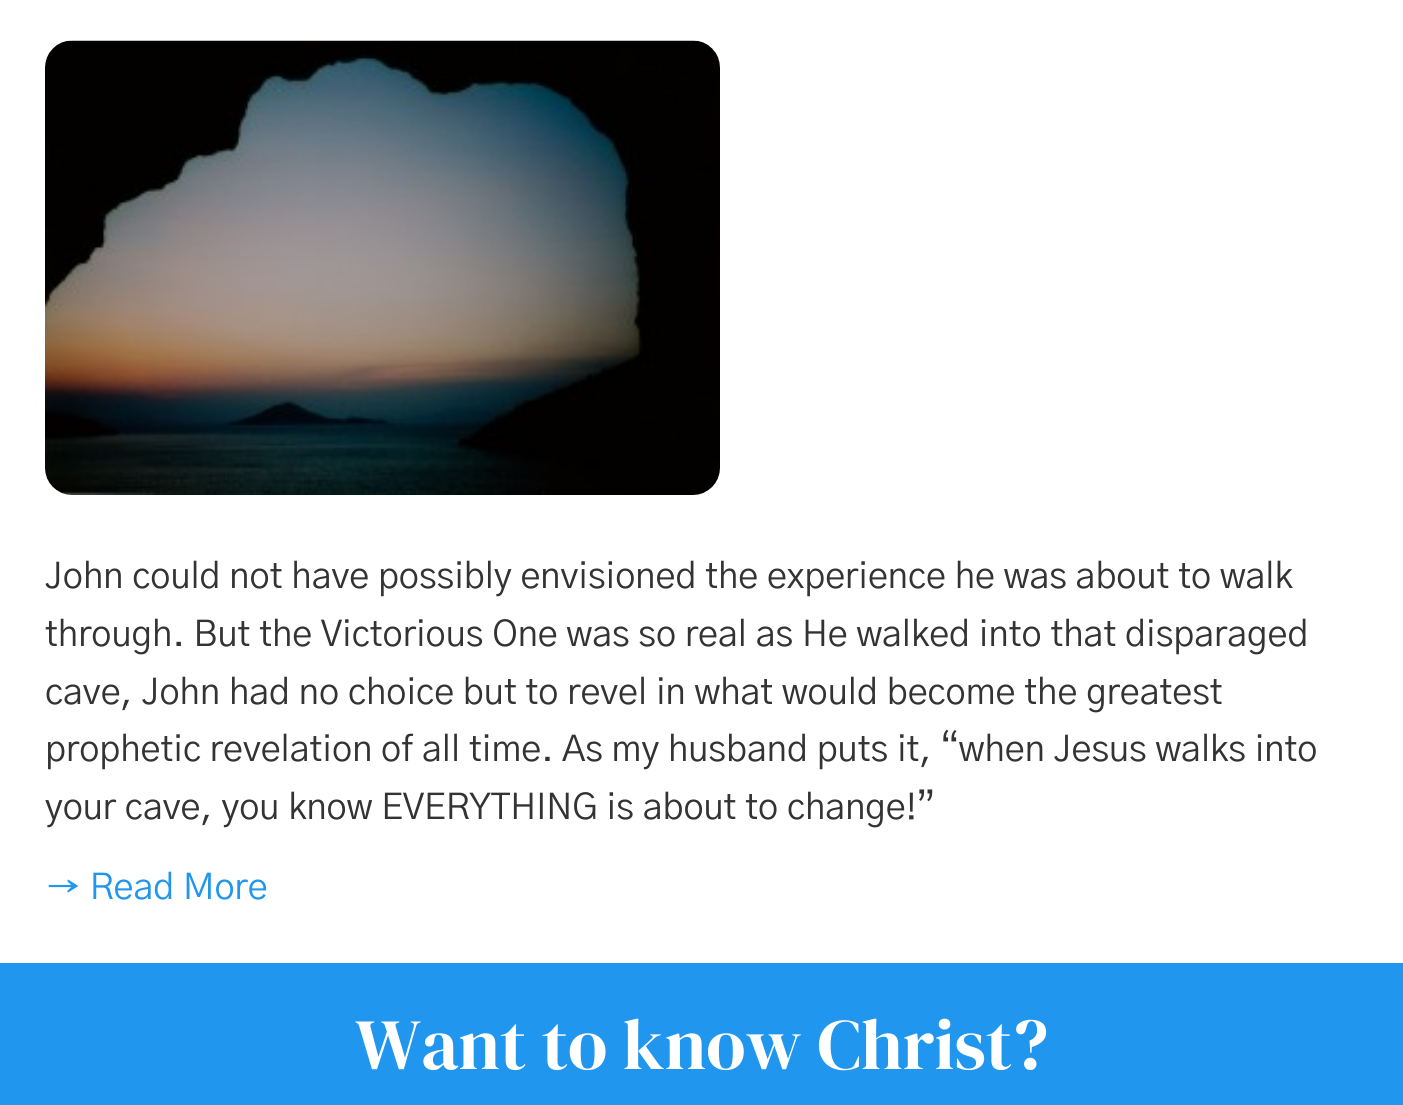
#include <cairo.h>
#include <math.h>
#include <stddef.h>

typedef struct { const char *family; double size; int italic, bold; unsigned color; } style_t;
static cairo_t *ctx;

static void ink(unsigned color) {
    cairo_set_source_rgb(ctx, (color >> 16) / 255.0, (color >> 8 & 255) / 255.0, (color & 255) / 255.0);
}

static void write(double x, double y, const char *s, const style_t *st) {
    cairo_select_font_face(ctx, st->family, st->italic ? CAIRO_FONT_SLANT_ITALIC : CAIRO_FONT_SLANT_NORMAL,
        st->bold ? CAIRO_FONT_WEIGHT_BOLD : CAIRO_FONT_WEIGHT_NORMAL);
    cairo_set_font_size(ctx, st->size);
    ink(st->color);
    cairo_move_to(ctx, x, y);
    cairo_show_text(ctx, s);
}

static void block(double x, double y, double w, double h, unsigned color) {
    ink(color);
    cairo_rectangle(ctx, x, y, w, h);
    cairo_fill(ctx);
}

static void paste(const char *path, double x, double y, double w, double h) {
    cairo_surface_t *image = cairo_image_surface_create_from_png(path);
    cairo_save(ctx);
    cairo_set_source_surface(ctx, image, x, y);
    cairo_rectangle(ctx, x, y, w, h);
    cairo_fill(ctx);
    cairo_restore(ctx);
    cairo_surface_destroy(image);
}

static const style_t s1 = {"Gothic A1", 36, 0, 0, 0x333333};
static const style_t s2 = {"Gothic A1", 36, 0, 0, 0x2196ef};
static const style_t s3 = {"DM Serif Display", 72, 0, 0, 0xffffff};

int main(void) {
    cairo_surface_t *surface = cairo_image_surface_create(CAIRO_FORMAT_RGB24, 1403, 1105);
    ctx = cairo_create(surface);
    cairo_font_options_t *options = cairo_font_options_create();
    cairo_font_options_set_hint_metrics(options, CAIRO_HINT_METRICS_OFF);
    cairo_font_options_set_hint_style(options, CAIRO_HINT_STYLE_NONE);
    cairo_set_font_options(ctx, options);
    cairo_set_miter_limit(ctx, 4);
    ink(0xffffff);
    cairo_paint(ctx);
    paste("pic1.png", 45, 40, 675, 455);
    write(45, 588, "John could not have possibly envisioned the experience he was about to walk", &s1);
    write(45, 646, "through. But the Victorious One was so real as He walked into that disparaged", &s1);
    write(45, 704, "cave, John had no choice but to revel in what would become the greatest", &s1);
    write(45, 761, "prophetic revelation of all time. As my husband puts it, “when Jesus walks into", &s1);
    write(45, 819, "your cave, you know EVERYTHING is about to change!”", &s1);
    write(45, 899, "→ Read More", &s2);
    block(0, 963, 1403, 142, 0x2196ef);
    write(355, 1069, "Want to know Christ?", &s3);
    cairo_surface_write_to_png(surface, "screenshot.png");
    cairo_font_options_destroy(options);
    cairo_destroy(ctx);
    cairo_surface_destroy(surface);
    return 0;
}
